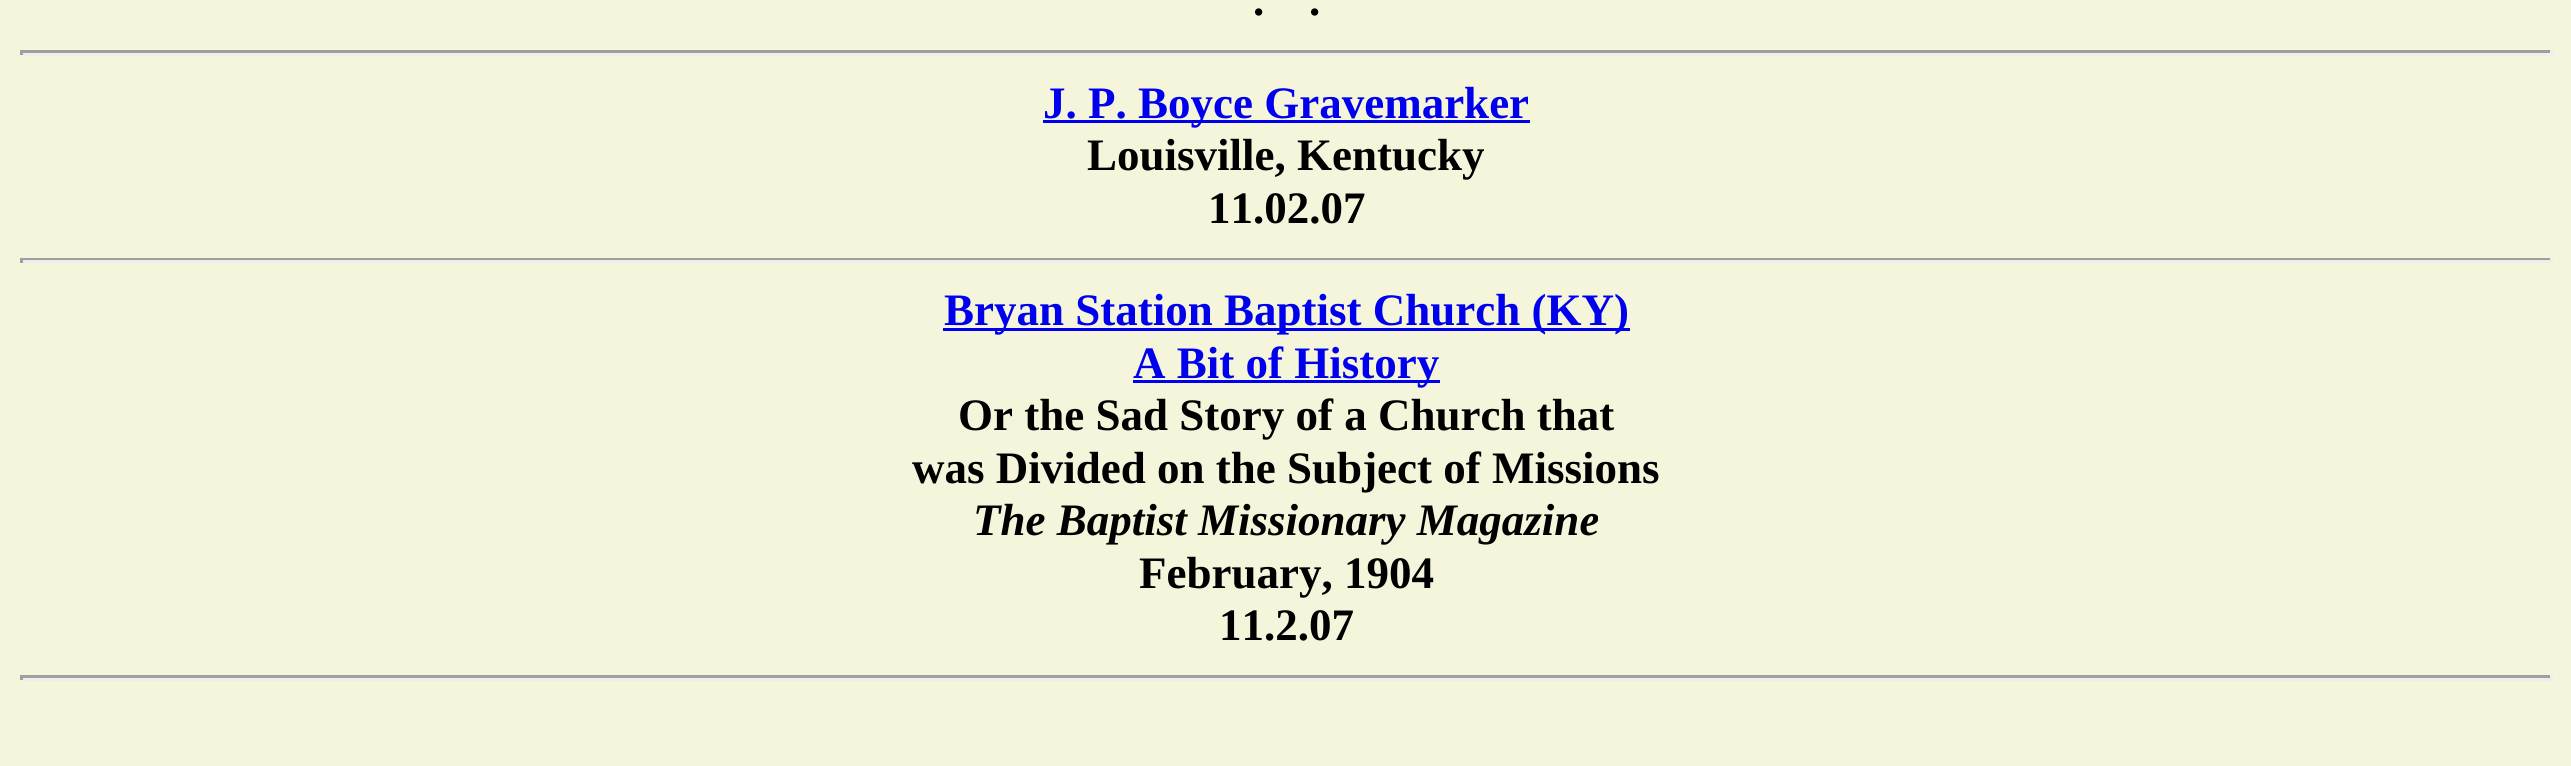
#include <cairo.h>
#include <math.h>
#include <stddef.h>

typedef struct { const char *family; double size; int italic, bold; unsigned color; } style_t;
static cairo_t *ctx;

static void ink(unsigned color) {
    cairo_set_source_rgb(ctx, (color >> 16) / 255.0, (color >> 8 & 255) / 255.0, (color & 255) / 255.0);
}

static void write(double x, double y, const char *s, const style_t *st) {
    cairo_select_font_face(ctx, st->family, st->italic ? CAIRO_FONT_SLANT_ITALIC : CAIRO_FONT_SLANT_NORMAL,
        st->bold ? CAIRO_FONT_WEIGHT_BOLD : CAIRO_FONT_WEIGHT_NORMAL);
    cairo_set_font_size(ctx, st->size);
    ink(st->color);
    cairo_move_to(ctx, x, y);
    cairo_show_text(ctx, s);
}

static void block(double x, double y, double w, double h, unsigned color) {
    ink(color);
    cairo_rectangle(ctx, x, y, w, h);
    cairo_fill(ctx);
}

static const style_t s1 = {"Liberation Serif", 45, 0, 1, 0x000000};
static const style_t s2 = {"Liberation Serif", 45, 0, 1, 0x0000ee};
static const style_t s3 = {"Liberation Serif", 45, 1, 1, 0x000000};

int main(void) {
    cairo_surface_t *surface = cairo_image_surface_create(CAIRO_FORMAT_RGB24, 2571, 766);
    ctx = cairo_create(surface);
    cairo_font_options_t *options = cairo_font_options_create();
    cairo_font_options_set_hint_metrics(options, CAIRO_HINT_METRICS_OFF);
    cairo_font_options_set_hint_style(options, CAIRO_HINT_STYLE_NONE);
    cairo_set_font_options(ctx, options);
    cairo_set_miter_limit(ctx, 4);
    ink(0xf5f5dc);
    cairo_paint(ctx);
    write(1253, 15, ".", &s1);
    write(1309, 15, ".", &s1);
    block(20, 50, 2533, 3, 0x9f9f9f);
    block(2550, 50, 3, 5, 0xeeeeee);
    block(20, 53, 2533, 3, 0xeeeeee);
    block(20, 50, 3, 5, 0x9f9f9f);
    block(1043, 120, 487, 3, 0x0000ee);
    write(1043, 118, "J. P. Boyce Gravemarker", &s2);
    write(1087, 170, "Louisville, Kentucky", &s1);
    write(1208, 223, "11.02.07", &s1);
    block(20, 258, 2533, 2, 0x9f9f9f);
    block(2550, 258, 3, 5, 0xeeeeee);
    block(20, 260, 2533, 3, 0xeeeeee);
    block(20, 258, 3, 5, 0x9f9f9f);
    block(943, 328, 687, 3, 0x0000ee);
    write(944, 325, "Bryan Station Baptist Church (KY)", &s2);
    block(1133, 380, 307, 3, 0x0000ee);
    write(1133, 378, "A Bit of History", &s2);
    write(958, 430, "Or the Sad Story of a Church that", &s1);
    write(912, 483, "was Divided on the Subject of Missions", &s1);
    write(973, 535, "The Baptist Missionary Magazine", &s3);
    write(1139, 588, "February, 1904", &s1);
    write(1219, 640, "11.2.07", &s1);
    block(20, 675, 2533, 3, 0x9f9f9f);
    block(2550, 675, 3, 5, 0xeeeeee);
    block(20, 678, 2533, 3, 0xeeeeee);
    block(20, 675, 3, 5, 0x9f9f9f);
    cairo_surface_write_to_png(surface, "screenshot.png");
    cairo_font_options_destroy(options);
    cairo_destroy(ctx);
    cairo_surface_destroy(surface);
    return 0;
}
